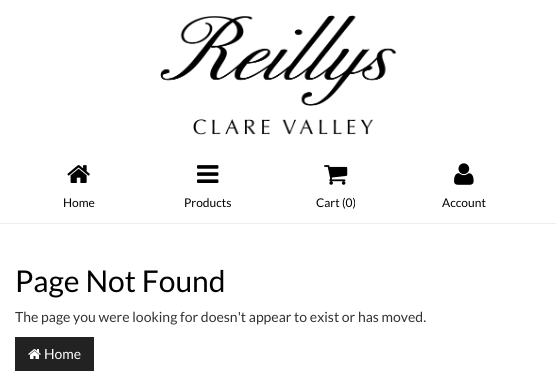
#include <cairo.h>
#include <math.h>
#include <stddef.h>

typedef struct { const char *family; double size; int italic, bold; unsigned color; } style_t;
static cairo_t *ctx;

static void ink(unsigned color) {
    cairo_set_source_rgb(ctx, (color >> 16) / 255.0, (color >> 8 & 255) / 255.0, (color & 255) / 255.0);
}

static void write(double x, double y, const char *s, const style_t *st) {
    cairo_select_font_face(ctx, st->family, st->italic ? CAIRO_FONT_SLANT_ITALIC : CAIRO_FONT_SLANT_NORMAL,
        st->bold ? CAIRO_FONT_WEIGHT_BOLD : CAIRO_FONT_WEIGHT_NORMAL);
    cairo_set_font_size(ctx, st->size);
    ink(st->color);
    cairo_move_to(ctx, x, y);
    cairo_show_text(ctx, s);
}

static void block(double x, double y, double w, double h, unsigned color) {
    ink(color);
    cairo_rectangle(ctx, x, y, w, h);
    cairo_fill(ctx);
}

static void paste(const char *path, double x, double y, double w, double h) {
    cairo_surface_t *image = cairo_image_surface_create_from_png(path);
    cairo_save(ctx);
    cairo_set_source_surface(ctx, image, x, y);
    cairo_rectangle(ctx, x, y, w, h);
    cairo_fill(ctx);
    cairo_restore(ctx);
    cairo_surface_destroy(image);
}

static const style_t s1 = {"Lato", 12, 0, 0, 0x000000};
static const style_t s2 = {"Lato", 30, 0, 0, 0x000000};
static const style_t s3 = {"Lato", 14, 0, 0, 0x333333};
static const style_t s4 = {"Lato", 14, 0, 0, 0xffffff};

int main(void) {
    cairo_surface_t *surface = cairo_image_surface_create(CAIRO_FORMAT_RGB24, 556, 373);
    ctx = cairo_create(surface);
    cairo_font_options_t *options = cairo_font_options_create();
    cairo_font_options_set_hint_metrics(options, CAIRO_HINT_METRICS_OFF);
    cairo_font_options_set_hint_style(options, CAIRO_HINT_STYLE_NONE);
    cairo_set_font_options(ctx, options);
    cairo_set_miter_limit(ctx, 4);
    ink(0xffffff);
    cairo_paint(ctx);
    block(0, 223, 556, 1, 0xeeeeee);
    paste("pic1.png", 160, 15, 236, 120);
    paste("pic2.png", 67, 165, 23, 18);
    write(63, 207, "Home", &s1);
    paste("pic3.png", 197, 165, 22, 18);
    write(184, 207, "Products", &s1);
    paste("pic4.png", 324, 165, 24, 20);
    write(316, 207, "Cart (0)", &s1);
    paste("pic5.png", 454, 163, 20, 22);
    write(442, 207, "Account", &s1);
    write(15, 292, "Page Not Found", &s2);
    write(15, 322, "The page you were looking for doesn't appear to exist or has moved.", &s3);
    block(15, 337, 79, 34, 0x222222);
    paste("pic6.png", 28, 349, 13, 10);
    write(44, 359, "Home", &s4);
    cairo_surface_write_to_png(surface, "screenshot.png");
    cairo_font_options_destroy(options);
    cairo_destroy(ctx);
    cairo_surface_destroy(surface);
    return 0;
}
